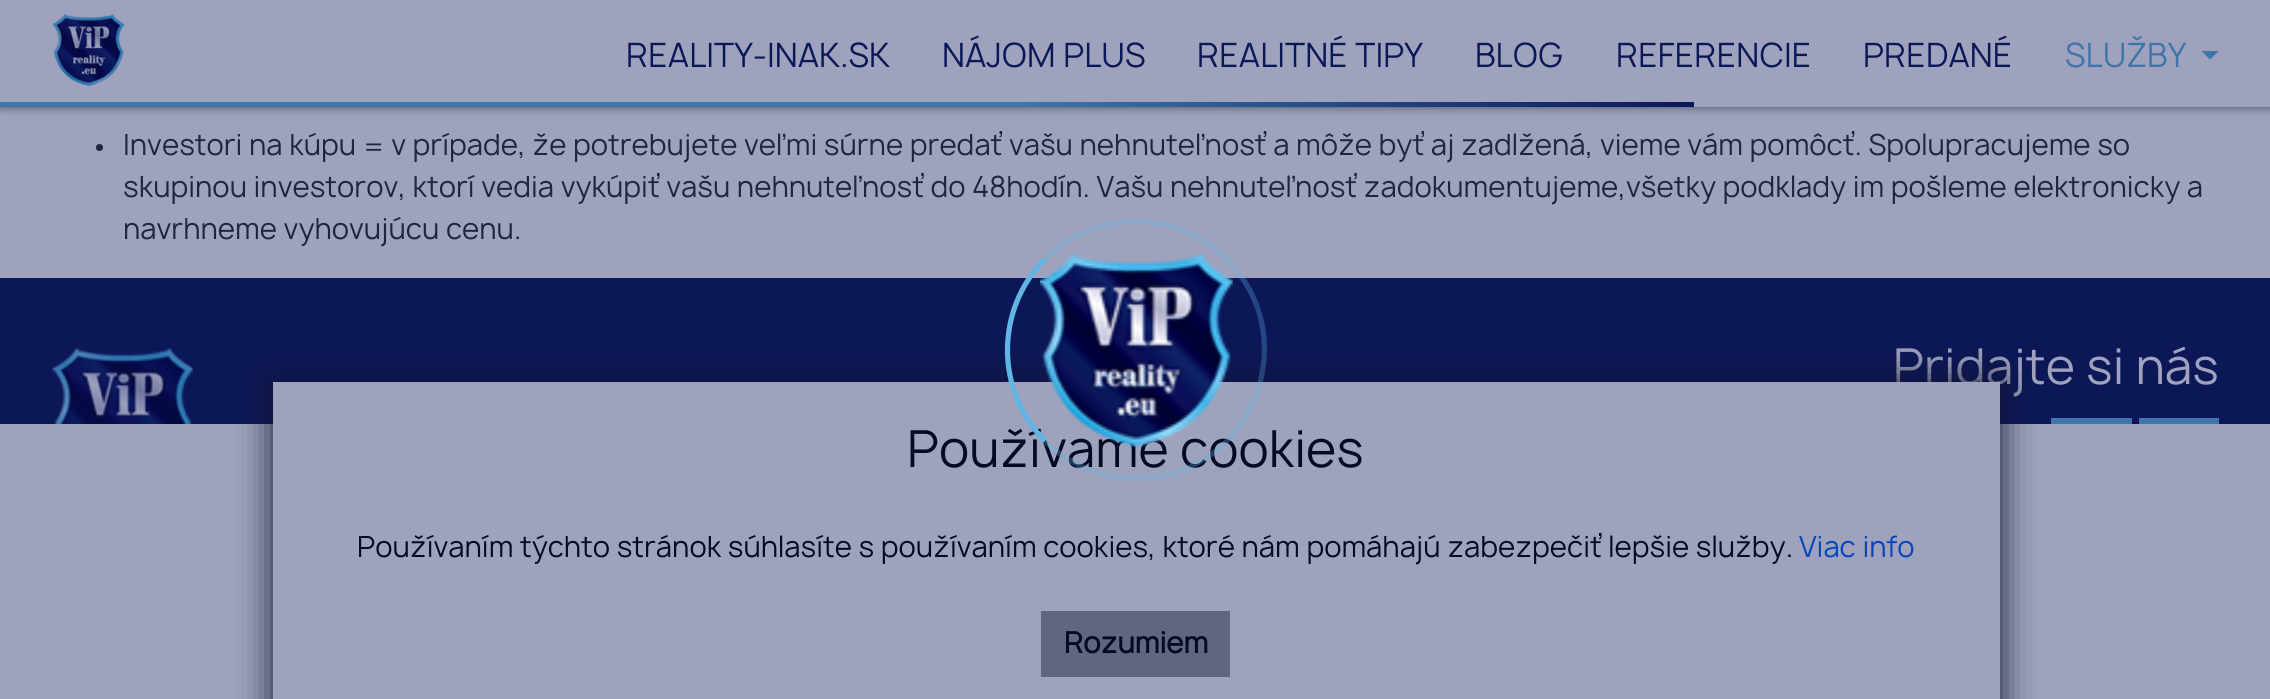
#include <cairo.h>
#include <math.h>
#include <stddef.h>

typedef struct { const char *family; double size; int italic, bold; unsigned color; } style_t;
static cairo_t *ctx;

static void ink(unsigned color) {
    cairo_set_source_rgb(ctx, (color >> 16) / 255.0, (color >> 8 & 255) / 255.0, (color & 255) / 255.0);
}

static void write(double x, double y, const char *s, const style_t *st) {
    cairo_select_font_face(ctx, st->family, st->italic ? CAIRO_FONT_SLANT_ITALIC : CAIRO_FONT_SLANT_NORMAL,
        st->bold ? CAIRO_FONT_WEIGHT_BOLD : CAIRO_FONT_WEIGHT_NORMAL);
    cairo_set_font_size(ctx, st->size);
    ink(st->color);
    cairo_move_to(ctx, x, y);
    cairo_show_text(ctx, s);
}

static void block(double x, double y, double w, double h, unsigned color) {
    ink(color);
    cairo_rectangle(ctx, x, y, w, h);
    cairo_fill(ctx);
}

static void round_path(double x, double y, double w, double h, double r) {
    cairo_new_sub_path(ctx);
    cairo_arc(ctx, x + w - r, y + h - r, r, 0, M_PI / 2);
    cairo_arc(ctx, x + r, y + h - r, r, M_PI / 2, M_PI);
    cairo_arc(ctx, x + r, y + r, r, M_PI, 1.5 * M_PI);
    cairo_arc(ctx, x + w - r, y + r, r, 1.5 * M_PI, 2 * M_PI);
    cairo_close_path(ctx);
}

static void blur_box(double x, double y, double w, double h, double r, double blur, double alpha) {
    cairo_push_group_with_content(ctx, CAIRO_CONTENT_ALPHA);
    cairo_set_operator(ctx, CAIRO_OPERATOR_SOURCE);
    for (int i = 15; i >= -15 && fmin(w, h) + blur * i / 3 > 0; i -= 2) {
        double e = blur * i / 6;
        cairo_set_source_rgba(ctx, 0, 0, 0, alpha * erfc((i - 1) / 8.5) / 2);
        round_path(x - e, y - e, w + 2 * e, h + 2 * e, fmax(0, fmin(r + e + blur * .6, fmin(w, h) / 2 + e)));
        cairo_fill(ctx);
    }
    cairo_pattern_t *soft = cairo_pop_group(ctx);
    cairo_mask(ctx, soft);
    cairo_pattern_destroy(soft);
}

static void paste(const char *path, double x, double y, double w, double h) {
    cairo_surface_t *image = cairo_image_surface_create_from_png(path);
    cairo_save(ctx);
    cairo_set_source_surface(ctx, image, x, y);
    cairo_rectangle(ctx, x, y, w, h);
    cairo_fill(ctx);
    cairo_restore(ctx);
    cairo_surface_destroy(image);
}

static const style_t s1 = {"Manrope", 32.25, 0, 0, 0x0c1758};
static const style_t s2 = {"Manrope", 32.25, 0, 0, 0x3e76ac};
static const style_t s3 = {"Manrope", 28, 0, 0, 0x20253f};
static const style_t s4 = {"Manrope", 47.5, 0, 0, 0x9ea2bc};
static const style_t s5 = {"Manrope", 49, 0, 0, 0x050923};
static const style_t s6 = {"Manrope", 28, 0, 0, 0x050923};
static const style_t s7 = {"Manrope", 28, 0, 0, 0x0546bc};
static const style_t s8 = {"Manrope", 28, 0, 1, 0x050923};

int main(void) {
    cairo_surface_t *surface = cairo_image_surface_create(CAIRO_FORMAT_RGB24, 2270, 699);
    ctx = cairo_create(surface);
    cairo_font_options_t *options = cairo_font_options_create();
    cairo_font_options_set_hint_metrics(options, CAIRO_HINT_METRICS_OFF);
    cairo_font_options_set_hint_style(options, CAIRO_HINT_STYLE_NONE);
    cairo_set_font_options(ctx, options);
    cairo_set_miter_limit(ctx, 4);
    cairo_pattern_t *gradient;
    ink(0x9ea2bc);
    cairo_paint(ctx);
    ink(0x424660);
    blur_box(0, 0, 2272, 107, 0, 4.5, 1);
    block(0, 0, 2270, 107, 0x9ea2bc);
    paste("pic1.png", 52, 14, 73, 72);
    write(626, 67, "REALITY-INAK.SK", &s1);
    write(942, 67, "NÁJOM PLUS", &s1);
    write(1197, 67, "REALITNÉ TIPY", &s1);
    write(1475, 67, "BLOG", &s1);
    write(1616, 67, "REFERENCIE", &s1);
    write(1863, 67, "PREDANÉ", &s1);
    write(2065, 67, "SLUŽBY", &s2);
    cairo_new_path(ctx);
    cairo_move_to(ctx, 2201.5, 51);
    cairo_line_to(ctx, 2219, 51);
    cairo_line_to(ctx, 2210, 59.5);
    cairo_close_path(ctx);
    cairo_fill(ctx);
    gradient = cairo_pattern_create_linear(0, 104, 1694, 104);
    cairo_pattern_add_color_stop_rgba(gradient, 0.6, 0.243, 0.463, 0.675, 1);
    cairo_pattern_add_color_stop_rgba(gradient, 1, 0.047, 0.09, 0.345, 1);
    cairo_set_source(ctx, gradient);
    cairo_pattern_destroy(gradient);
    cairo_rectangle(ctx, 0, 102, 1694, 5);
    cairo_fill(ctx);
    ink(0x20253f);
    cairo_arc(ctx, 99.5, 147.5, 3.5, 0, 2 * M_PI);
    cairo_fill(ctx);
    write(123, 155, "Investori na kúpu = v prípade, že potrebujete veľmi súrne predať vašu nehnuteľnosť a môže byť aj zadlžená, vieme vám pomôcť. Spolupracujeme so", &s3);
    write(123, 197, "skupinou investorov, ktorí vedia vykúpiť vašu nehnuteľnosť do 48hodín. Vašu nehnuteľnosť zadokumentujeme,všetky podklady im pošleme elektronicky a", &s3);
    write(123, 239, "navrhneme vyhovujúcu cenu.", &s3);
    block(0, 278, 2270, 146, 0x0c1758);
    paste("pic2.png", 52, 348, 141, 76);
    write(1893, 384, "Pridajte si nás", &s4);
    block(2051, 418, 81, 6, 0x3e76ac);
    block(2139, 418, 80, 6, 0x3e76ac);
    ink(0x0f132d);
    blur_box(273, 382, 1727, 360, 0, 17.5, 1);
    block(273, 382, 1727, 317, 0x9ea2bc);
    write(907, 467, "Používame cookies", &s5);
    cairo_new_path(ctx);
    cairo_move_to(ctx, 1045, 259);
    cairo_curve_to(ctx, 1075, 229, 1119, 215.5, 1161, 224);
    cairo_curve_to(ctx, 1185.5, 229, 1209, 241, 1226.5, 259);
    cairo_curve_to(ctx, 1307.5, 340, 1250, 478.5, 1136, 478.5);
    cairo_curve_to(ctx, 1102, 478.5, 1069, 465, 1045, 441);
    cairo_set_source_rgba(ctx, 0.376, 0.71, 0.894, 0.3);
    cairo_set_line_width(ctx, 5.2);
    cairo_stroke(ctx);
    cairo_new_path(ctx);
    cairo_move_to(ctx, 1045, 441);
    cairo_curve_to(ctx, 995, 391, 995, 309, 1045, 259);
    ink(0x60b5e4);
    cairo_stroke(ctx);
    paste("pic3.png", 1040, 253, 193, 194);
    write(357, 557, "Používaním týchto stránok súhlasíte s používaním cookies, ktoré nám pomáhajú zabezpečiť lepšie služby.", &s6);
    write(1799, 557, "Viac info", &s7);
    block(1041, 611, 189, 66, 0x61657f);
    write(1064, 653, "Rozumiem", &s8);
    cairo_surface_write_to_png(surface, "screenshot.png");
    cairo_font_options_destroy(options);
    cairo_destroy(ctx);
    cairo_surface_destroy(surface);
    return 0;
}
